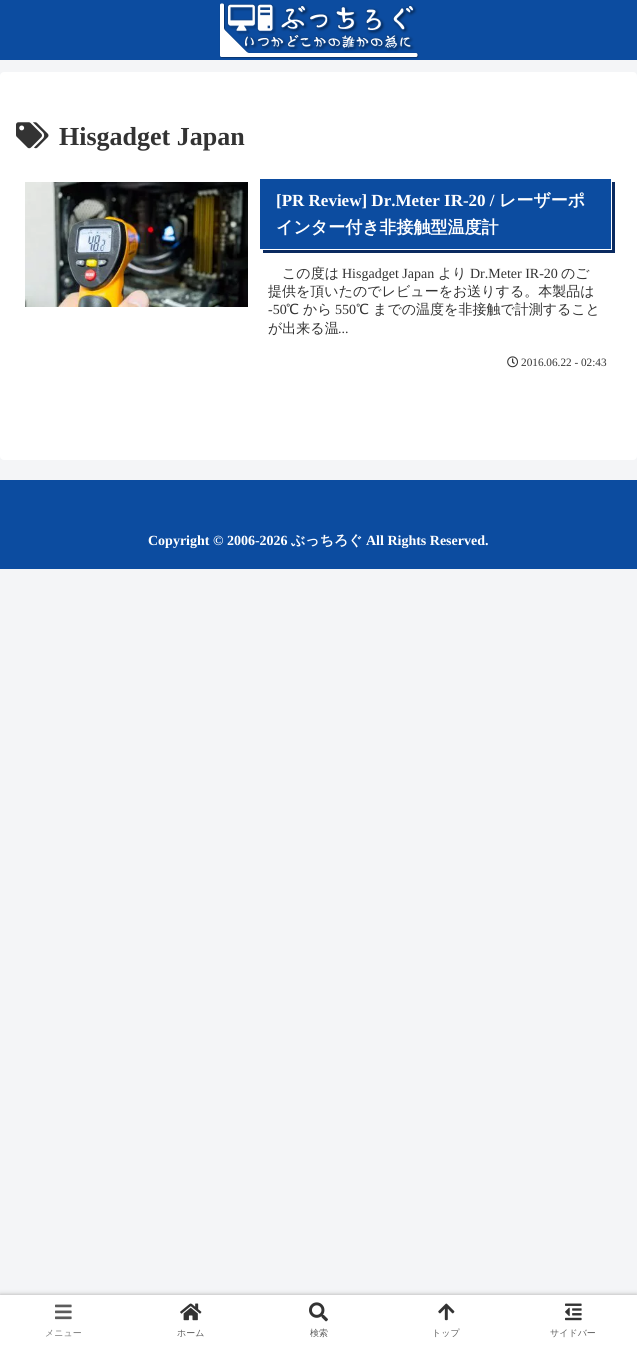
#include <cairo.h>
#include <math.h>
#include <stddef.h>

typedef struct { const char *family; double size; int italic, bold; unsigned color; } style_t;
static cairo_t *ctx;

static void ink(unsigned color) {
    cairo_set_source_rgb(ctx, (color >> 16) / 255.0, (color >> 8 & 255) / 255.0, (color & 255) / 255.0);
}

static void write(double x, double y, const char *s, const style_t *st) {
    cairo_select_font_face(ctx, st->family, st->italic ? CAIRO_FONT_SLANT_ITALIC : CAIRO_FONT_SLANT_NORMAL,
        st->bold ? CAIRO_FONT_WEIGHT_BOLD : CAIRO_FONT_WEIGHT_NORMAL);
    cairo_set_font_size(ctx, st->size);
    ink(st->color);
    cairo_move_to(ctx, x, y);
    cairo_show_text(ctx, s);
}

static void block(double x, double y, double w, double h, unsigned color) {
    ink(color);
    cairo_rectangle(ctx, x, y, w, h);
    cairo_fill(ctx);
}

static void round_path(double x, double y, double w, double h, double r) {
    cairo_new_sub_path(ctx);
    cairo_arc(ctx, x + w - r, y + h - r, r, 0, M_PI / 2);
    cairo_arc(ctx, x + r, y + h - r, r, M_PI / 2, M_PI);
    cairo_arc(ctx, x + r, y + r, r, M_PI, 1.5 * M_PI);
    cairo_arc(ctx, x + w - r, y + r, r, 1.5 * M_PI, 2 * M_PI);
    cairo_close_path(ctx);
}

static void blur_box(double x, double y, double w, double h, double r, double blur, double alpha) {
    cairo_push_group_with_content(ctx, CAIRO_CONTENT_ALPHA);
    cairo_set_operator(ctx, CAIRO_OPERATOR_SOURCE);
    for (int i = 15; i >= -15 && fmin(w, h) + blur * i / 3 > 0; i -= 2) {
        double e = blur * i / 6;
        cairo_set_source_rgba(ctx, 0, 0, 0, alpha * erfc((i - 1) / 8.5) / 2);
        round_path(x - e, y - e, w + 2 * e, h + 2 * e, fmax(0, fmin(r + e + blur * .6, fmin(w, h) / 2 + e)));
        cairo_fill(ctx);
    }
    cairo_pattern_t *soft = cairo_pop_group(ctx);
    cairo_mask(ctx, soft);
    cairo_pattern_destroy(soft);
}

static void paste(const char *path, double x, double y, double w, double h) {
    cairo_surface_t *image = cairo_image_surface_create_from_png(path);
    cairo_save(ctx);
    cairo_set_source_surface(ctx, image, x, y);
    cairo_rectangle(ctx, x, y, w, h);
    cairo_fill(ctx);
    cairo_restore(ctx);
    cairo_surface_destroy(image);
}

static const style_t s1 = {"Liberation Serif", 26, 0, 1, 0x333333};
static const style_t s2 = {"Liberation Serif", 17, 0, 1, 0xffffff};
static const style_t s3 = {"WenQuanYi Zen Hei", 17, 0, 1, 0xffffff};
static const style_t s4 = {"WenQuanYi Zen Hei Medium", 14, 0, 0, 0x333333};
static const style_t s5 = {"Liberation Serif", 14, 0, 0, 0x333333};
static const style_t s6 = {"Liberation Serif", 11.25, 0, 0, 0x333333};
static const style_t s7 = {"Liberation Serif", 14, 0, 1, 0xffffff};
static const style_t s8 = {"WenQuanYi Zen Hei", 14, 0, 1, 0xffffff};
static const style_t s9 = {"WenQuanYi Zen Hei Medium", 9, 0, 0, 0x7c7c7c};
static const style_t s10 = {"WenQuanYi Zen Hei Medium", 9, 0, 0, 0x5c5c5c};

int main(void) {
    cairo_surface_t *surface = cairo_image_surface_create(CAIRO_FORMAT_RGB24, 637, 1345);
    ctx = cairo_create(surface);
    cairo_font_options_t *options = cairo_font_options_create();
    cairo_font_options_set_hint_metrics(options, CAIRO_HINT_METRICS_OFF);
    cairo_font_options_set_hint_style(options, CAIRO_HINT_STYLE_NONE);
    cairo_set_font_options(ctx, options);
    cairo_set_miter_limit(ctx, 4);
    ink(0xf4f5f7);
    cairo_paint(ctx);
    block(0, 0, 637, 60, 0x0c4ca0);
    paste("pic1.png", 219, 3, 200, 56);
    ink(0xffffff);
    round_path(0, 72, 637, 388, 4);
    cairo_fill(ctx);
    paste("pic2.png", 16, 122, 33, 27);
    write(59, 145, "Hisgadget Japan", &s1);
    paste("pic3.png", 25, 182, 223, 125);
    ink(0x0a2a60);
    cairo_new_path(ctx);
    cairo_move_to(ctx, 263, 250);
    cairo_line_to(ctx, 263, 253);
    cairo_line_to(ctx, 615, 253);
    cairo_line_to(ctx, 615, 182);
    cairo_line_to(ctx, 612, 182);
    cairo_line_to(ctx, 612, 250);
    cairo_close_path(ctx);
    cairo_fill(ctx);
    block(260, 179, 351, 70, 0x0c4ca0);
    write(276, 206, "[PR Review] Dr.Meter IR-20 /", &s2);
    write(499, 206, "レーザーポ", &s3);
    write(276, 233, "インター付き非接触型温度計", &s3);
    write(282, 278, "この度は", &s4);
    write(342, 278, "Hisgadget Japan", &s5);
    write(438, 278, "より", &s4);
    write(470, 278, "Dr.Meter IR-20", &s5);
    write(561, 278, "のご", &s4);
    write(268, 296, "提供を頂いたのでレビューをお送りする。本製品は", &s4);
    write(268, 314, "-50", &s5);
    write(286, 314, "℃ から", &s4);
    write(335, 314, "550", &s5);
    write(356, 314, "℃ までの温度を非接触で計測すること", &s4);
    write(268, 333, "が出来る温", &s4);
    write(338, 333, "...", &s5);
    paste("pic4.png", 507, 356, 11, 12);
    write(521, 366, "2016.06.22 - 02:43", &s6);
    block(0, 480, 637, 89, 0x0c4ca0);
    write(148, 545, "Copyright © 2006-2026", &s7);
    write(291, 545, "ぶっちろぐ", &s8);
    write(366, 545, "All Rights Reserved.", &s7);
    ink(0xa9a9a9);
    blur_box(0, 1295, 637, 50, 0, 2.5, 1);
    block(0, 1295, 637, 50, 0xffffff);
    paste("pic5.png", 55, 1304, 17, 16);
    write(45, 1336, "メニュー", &s9);
    paste("pic6.png", 180, 1303, 22, 18);
    write(177, 1336, "ホーム", &s10);
    paste("pic7.png", 309, 1302, 19, 20);
    write(310, 1336, "検索", &s10);
    paste("pic8.png", 438, 1303, 17, 18);
    write(432, 1336, "トップ", &s10);
    paste("pic9.png", 565, 1303, 17, 18);
    write(550, 1336, "サイドバー", &s10);
    cairo_surface_write_to_png(surface, "screenshot.png");
    cairo_font_options_destroy(options);
    cairo_destroy(ctx);
    cairo_surface_destroy(surface);
    return 0;
}
